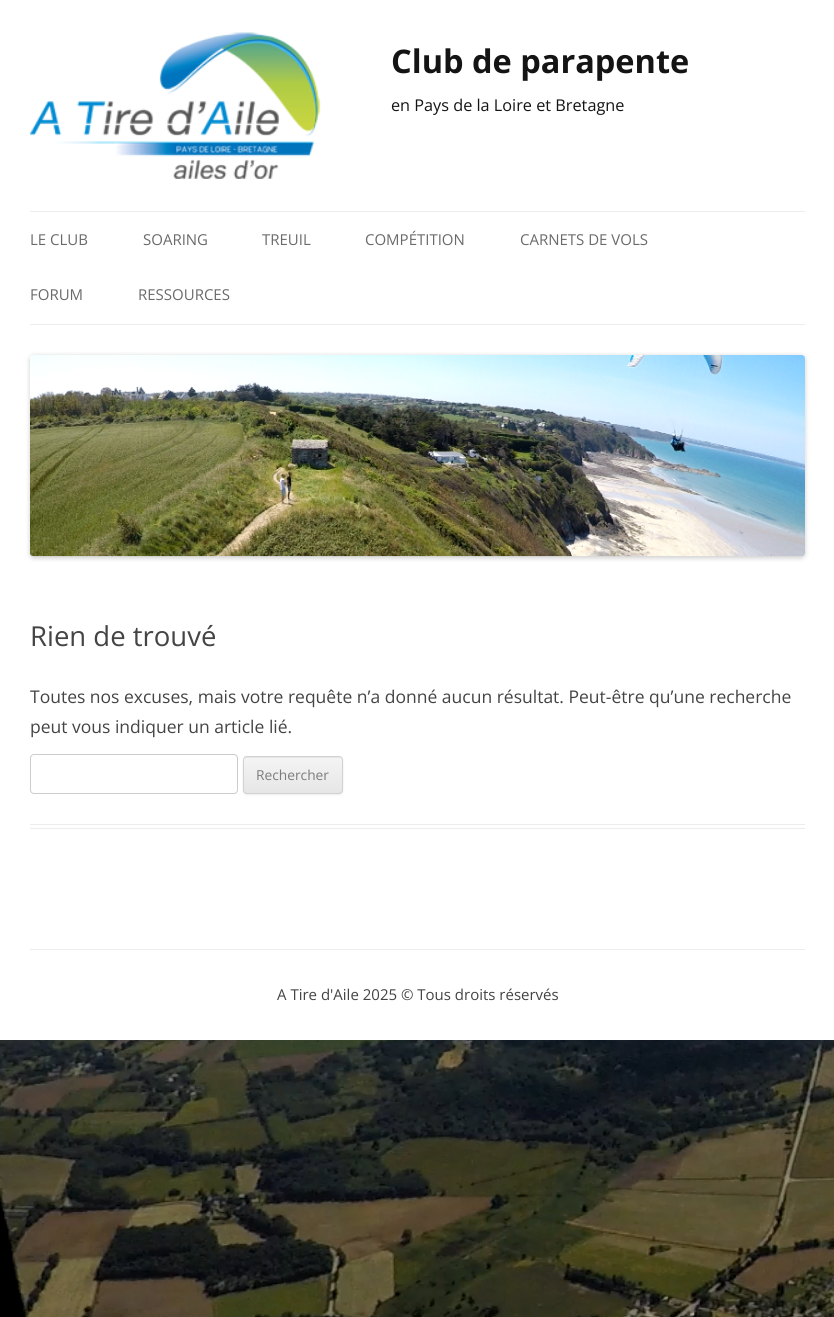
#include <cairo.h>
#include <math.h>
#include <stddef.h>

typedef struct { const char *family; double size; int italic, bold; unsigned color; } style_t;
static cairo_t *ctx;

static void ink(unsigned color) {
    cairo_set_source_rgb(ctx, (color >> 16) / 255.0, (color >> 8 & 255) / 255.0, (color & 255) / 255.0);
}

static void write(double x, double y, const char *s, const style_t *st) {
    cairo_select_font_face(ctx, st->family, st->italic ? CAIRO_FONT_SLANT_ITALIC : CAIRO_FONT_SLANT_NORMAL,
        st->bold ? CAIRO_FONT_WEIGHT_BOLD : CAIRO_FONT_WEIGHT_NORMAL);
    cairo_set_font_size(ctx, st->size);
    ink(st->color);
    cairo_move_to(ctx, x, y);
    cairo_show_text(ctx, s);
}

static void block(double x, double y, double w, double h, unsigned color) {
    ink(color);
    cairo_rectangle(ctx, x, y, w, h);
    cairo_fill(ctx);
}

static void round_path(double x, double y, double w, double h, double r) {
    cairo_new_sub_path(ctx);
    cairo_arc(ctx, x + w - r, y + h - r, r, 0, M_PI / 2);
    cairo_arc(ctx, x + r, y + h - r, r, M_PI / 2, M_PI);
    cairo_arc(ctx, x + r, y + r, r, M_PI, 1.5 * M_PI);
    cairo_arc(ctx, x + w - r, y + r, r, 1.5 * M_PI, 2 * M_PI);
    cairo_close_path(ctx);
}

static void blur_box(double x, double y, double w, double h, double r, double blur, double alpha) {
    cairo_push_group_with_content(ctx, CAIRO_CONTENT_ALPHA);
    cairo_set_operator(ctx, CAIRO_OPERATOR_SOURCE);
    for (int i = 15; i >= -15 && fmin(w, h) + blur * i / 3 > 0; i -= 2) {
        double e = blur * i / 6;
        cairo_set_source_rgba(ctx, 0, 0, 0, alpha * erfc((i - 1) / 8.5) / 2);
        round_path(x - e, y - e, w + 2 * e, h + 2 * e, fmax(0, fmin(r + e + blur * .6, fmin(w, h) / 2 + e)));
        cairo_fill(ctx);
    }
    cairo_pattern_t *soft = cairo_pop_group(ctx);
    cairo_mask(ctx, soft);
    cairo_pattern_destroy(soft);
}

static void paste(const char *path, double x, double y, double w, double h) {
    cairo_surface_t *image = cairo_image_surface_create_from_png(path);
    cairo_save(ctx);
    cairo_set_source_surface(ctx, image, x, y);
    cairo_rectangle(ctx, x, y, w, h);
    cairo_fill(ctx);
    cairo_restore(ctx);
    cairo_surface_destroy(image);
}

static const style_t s1 = {"Open Sans", 32.5, 0, 1, 0x141414};
static const style_t s2 = {"Open Sans", 16.25, 0, 0, 0x141414};
static const style_t s3 = {"Open Sans", 15, 0, 0, 0x6a6a6a};
static const style_t s4 = {"Open Sans", 27.5, 0, 0, 0x444444};
static const style_t s5 = {"Open Sans", 17.5, 0, 0, 0x444444};
static const style_t s6 = {"Open Sans", 13.75, 0, 0, 0x7c7c7c};
static const style_t s7 = {"Open Sans", 15, 0, 0, 0x444444};

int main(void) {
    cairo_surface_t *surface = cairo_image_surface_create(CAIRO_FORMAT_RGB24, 834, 1317);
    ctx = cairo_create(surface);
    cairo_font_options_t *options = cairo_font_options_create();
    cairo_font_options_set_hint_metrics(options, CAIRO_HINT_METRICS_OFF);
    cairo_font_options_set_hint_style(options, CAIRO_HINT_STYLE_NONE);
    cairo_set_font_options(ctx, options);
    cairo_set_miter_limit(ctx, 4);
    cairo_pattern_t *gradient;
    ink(0xffffff);
    cairo_paint(ctx);
    paste("pic1.png", 0, 1040, 834, 277);
    paste("pic2.png", 30, 32, 291, 147);
    write(391, 73, "Club de parapente", &s1);
    write(391, 111, "en Pays de la Loire et Bretagne", &s2);
    block(30, 211, 775, 1, 0xededed);
    block(30, 324, 775, 1, 0xededed);
    write(30, 245, "LE CLUB", &s3);
    write(143, 245, "SOARING", &s3);
    write(262, 245, "TREUIL", &s3);
    write(365, 245, "COMPÉTITION", &s3);
    write(520, 245, "CARNETS DE VOLS", &s3);
    write(30, 300, "FORUM", &s3);
    write(138, 300, "RESSOURCES", &s3);
    ink(0x000000);
    blur_box(30, 356, 775, 202, 4, 2.5, 0.2);
    paste("pic3.png", 30, 355, 775, 202);
    block(30, 824, 775, 1, 0xededed);
    block(30, 828, 775, 1, 0xededed);
    write(30, 646, "Rien de trouvé", &s4);
    write(30, 703, "Toutes nos excuses, mais votre requête n’a donné aucun résultat. Peut-être qu’une recherche", &s5);
    write(30, 733, "peut vous indiquer un article lié.", &s5);
    round_path(30.5, 754.5, 207, 39, 3.5);
    ink(0xcccccc);
    cairo_set_line_width(ctx, 1);
    cairo_stroke(ctx);
    ink(0x404040);
    blur_box(243, 758, 100, 37, 4, 1, 0.1);
    ink(0xe6e6e6);
    round_path(243, 756, 100, 38, 4);
    cairo_fill(ctx);
    cairo_save(ctx);
    round_path(243, 756, 100, 38, 4);
    cairo_clip(ctx);
    gradient = cairo_pattern_create_linear(293, 758, 293, 793);
    cairo_pattern_add_color_stop_rgba(gradient, 0, 0.957, 0.957, 0.957, 1);
    cairo_pattern_add_color_stop_rgba(gradient, 1, 0.902, 0.902, 0.902, 1);
    cairo_set_source(ctx, gradient);
    cairo_pattern_destroy(gradient);
    cairo_rectangle(ctx, 243, 758, 100, 35);
    cairo_fill(ctx);
    cairo_restore(ctx);
    round_path(243.5, 756.5, 99, 37, 3.5);
    ink(0xd2d2d2);
    cairo_stroke(ctx);
    write(256, 780, "Rechercher", &s6);
    block(30, 949, 775, 1, 0xededed);
    write(277, 1000, "A Tire d'Aile 2025 © Tous droits réservés", &s7);
    cairo_surface_write_to_png(surface, "screenshot.png");
    cairo_font_options_destroy(options);
    cairo_destroy(ctx);
    cairo_surface_destroy(surface);
    return 0;
}
